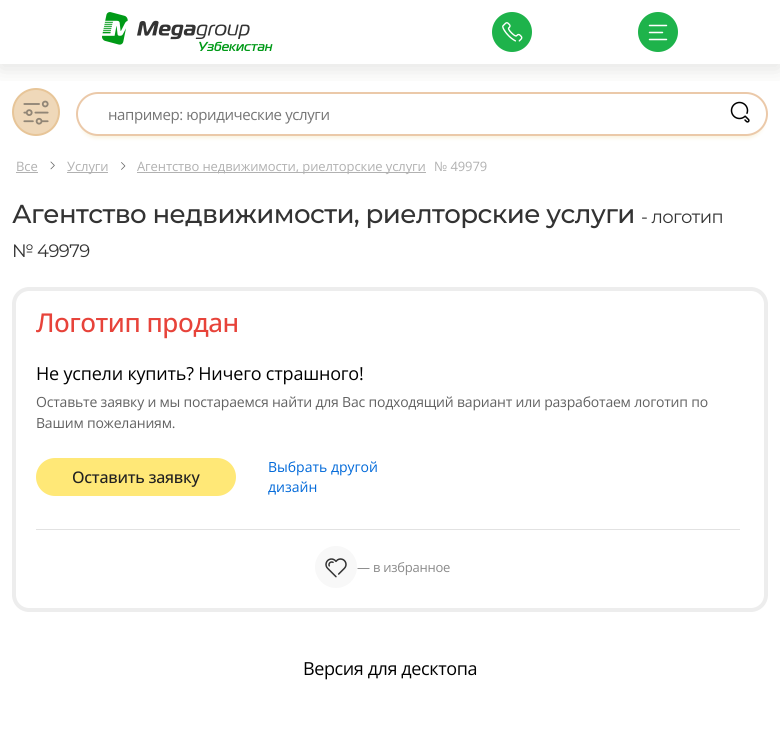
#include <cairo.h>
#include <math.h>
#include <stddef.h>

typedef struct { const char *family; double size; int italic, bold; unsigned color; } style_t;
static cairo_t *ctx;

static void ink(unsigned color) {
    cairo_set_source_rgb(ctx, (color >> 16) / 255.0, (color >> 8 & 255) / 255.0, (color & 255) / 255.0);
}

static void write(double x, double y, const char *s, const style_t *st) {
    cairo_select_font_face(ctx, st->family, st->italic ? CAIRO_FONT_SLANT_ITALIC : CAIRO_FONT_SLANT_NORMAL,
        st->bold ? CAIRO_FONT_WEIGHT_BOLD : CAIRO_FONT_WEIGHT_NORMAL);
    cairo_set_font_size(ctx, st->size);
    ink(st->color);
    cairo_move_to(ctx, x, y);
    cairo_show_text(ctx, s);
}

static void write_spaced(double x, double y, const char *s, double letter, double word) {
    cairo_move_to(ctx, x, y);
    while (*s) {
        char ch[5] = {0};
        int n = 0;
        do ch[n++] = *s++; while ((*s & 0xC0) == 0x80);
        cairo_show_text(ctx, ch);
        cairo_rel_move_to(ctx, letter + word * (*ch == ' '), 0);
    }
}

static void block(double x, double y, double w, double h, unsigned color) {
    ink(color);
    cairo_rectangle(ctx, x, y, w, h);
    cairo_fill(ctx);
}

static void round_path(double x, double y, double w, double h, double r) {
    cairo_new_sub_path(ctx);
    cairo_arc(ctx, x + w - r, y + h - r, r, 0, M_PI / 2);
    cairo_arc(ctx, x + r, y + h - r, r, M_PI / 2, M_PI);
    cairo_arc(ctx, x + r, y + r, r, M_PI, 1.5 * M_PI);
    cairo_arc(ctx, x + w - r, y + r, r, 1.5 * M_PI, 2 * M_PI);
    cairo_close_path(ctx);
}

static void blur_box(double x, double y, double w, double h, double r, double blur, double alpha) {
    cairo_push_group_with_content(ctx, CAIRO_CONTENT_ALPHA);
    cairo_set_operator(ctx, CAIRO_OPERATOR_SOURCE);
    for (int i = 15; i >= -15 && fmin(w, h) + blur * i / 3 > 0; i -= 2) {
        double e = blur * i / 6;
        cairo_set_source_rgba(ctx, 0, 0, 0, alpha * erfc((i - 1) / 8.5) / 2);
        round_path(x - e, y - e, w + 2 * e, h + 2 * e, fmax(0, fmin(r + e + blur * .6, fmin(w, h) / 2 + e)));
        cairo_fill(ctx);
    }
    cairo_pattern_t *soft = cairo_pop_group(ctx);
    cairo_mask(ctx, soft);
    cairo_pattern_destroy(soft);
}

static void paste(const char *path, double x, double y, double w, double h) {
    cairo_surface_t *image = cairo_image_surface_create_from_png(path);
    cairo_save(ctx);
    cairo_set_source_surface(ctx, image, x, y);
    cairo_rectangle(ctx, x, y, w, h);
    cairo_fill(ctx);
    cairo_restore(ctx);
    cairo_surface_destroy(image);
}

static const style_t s1 = {"Open Sans", 14, 0, 0, 0x0169d9};

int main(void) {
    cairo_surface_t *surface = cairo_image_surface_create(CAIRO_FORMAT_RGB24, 780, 742);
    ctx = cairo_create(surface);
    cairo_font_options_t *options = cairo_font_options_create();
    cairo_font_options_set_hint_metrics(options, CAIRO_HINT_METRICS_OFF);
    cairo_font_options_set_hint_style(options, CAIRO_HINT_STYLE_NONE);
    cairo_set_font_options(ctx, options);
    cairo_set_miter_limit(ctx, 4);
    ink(0xffffff);
    cairo_paint(ctx);
    ink(0xefd8b9);
    cairo_arc(ctx, 36, 112, 23, 0, 2 * M_PI);
    cairo_fill_preserve(ctx);
    ink(0xe7c598);
    cairo_stroke(ctx);
    paste("pic4.png", 23, 100, 26, 25);
    ink(0xe9cd82);
    blur_box(80, 102, 684, 36, 18, 2, 0.27);
    ink(0xffffff);
    round_path(77, 93, 690, 42, 21);
    cairo_fill_preserve(ctx);
    ink(0xebc9a9);
    cairo_stroke(ctx);
    paste("pic5.png", 730, 101, 20, 22);
    cairo_save(ctx);
    cairo_rectangle(ctx, 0, 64, 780, 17);
    cairo_clip(ctx);
    ink(0x49473b);
    blur_box(0, 5, 780, 64, 0, 10.5, 0.15);
    cairo_restore(ctx);
    paste("pic1.png", 102, 12, 171, 40);
    ink(0x1eb34b);
    cairo_arc(ctx, 512, 32, 20, 0, 2 * M_PI);
    cairo_fill(ctx);
    paste("pic2.png", 502, 22, 21, 20);
    cairo_arc(ctx, 658, 32, 20, 0, 2 * M_PI);
    cairo_fill(ctx);
    paste("pic3.png", 648, 24, 20, 17);
    cairo_select_font_face(ctx, "Open Sans", CAIRO_FONT_SLANT_NORMAL, CAIRO_FONT_WEIGHT_NORMAL);
    cairo_set_font_size(ctx, 15);
    ink(0x757575);
    write_spaced(108, 120, "например: юридические услуги", -0.4, 0);
    cairo_set_font_size(ctx, 13);
    ink(0xb1b1b1);
    write_spaced(16, 171, "Все", -0.1, 0);
    block(16, 172, 22, 1, 0xb1b1b1);
    paste("pic6.png", 50, 161, 5, 9);
    block(67, 172, 41, 1, 0xb1b1b1);
    write_spaced(67, 171, "Услуги", -0.1, 0);
    paste("pic7.png", 121, 162, 5, 8);
    block(137, 172, 289, 1, 0xb1b1b1);
    write_spaced(137, 171, "Агентство недвижимости, риелторские услуги", -0.1, 0);
    write_spaced(434, 171, "№ 49979", -0.1, 0);
    cairo_select_font_face(ctx, "Montserrat Medium", CAIRO_FONT_SLANT_NORMAL, CAIRO_FONT_WEIGHT_NORMAL);
    cairo_set_font_size(ctx, 26);
    ink(0x333333);
    write_spaced(12, 223, "Агентство недвижимости, риелторские услуги", -0.6, 0);
    cairo_select_font_face(ctx, "Montserrat", CAIRO_FONT_SLANT_NORMAL, CAIRO_FONT_WEIGHT_NORMAL);
    cairo_set_font_size(ctx, 18);
    write_spaced(641, 223, "- логотип", -0.6, 0);
    write_spaced(12, 257, "№ 49979", -0.6, 0);
    round_path(14, 289, 752, 321, 15);
    ink(0xededed);
    cairo_set_line_width(ctx, 4);
    cairo_stroke(ctx);
    cairo_select_font_face(ctx, "Open Sans Medium", CAIRO_FONT_SLANT_NORMAL, CAIRO_FONT_WEIGHT_NORMAL);
    cairo_set_font_size(ctx, 26);
    ink(0xe7433a);
    write_spaced(36, 332, "Логотип продан", -0.5, 0);
    cairo_select_font_face(ctx, "Open Sans", CAIRO_FONT_SLANT_NORMAL, CAIRO_FONT_WEIGHT_NORMAL);
    cairo_set_font_size(ctx, 18);
    ink(0x000000);
    write_spaced(36, 380, "Не успели купить? Ничего страшного!", -0.2, 0);
    cairo_set_font_size(ctx, 14);
    ink(0x626262);
    write_spaced(36, 407, "Оставьте заявку и мы постараемся найти для Вас подходящий вариант или разработаем логотип по", -0.2, 0);
    write_spaced(36, 428, "Вашим пожеланиям.", -0.2, 0);
    ink(0xffe877);
    round_path(36, 458, 200, 38, 19);
    cairo_fill(ctx);
    cairo_select_font_face(ctx, "Open Sans Medium", CAIRO_FONT_SLANT_NORMAL, CAIRO_FONT_WEIGHT_NORMAL);
    cairo_set_font_size(ctx, 16);
    ink(0x212121);
    write_spaced(72, 483, "Оставить заявку", -0.25, 0);
    write(268, 472, "Выбрать другой", &s1);
    write(268, 492, "дизайн", &s1);
    block(36, 529, 704, 1, 0xe2e2e2);
    ink(0xf8f8f8);
    cairo_new_path(ctx);
    cairo_arc(ctx, 336, 567, 21, 0, 2 * M_PI);
    cairo_fill(ctx);
    paste("pic8.png", 325, 558, 22, 20);
    cairo_set_font_size(ctx, 13);
    ink(0x8a8a8a);
    write_spaced(357, 572, "— в избранное", -0.25, 0);
    cairo_set_font_size(ctx, 18);
    ink(0x000000);
    write_spaced(303, 675, "Версия для десктопа", -0.4, 0);
    cairo_surface_write_to_png(surface, "screenshot.png");
    cairo_font_options_destroy(options);
    cairo_destroy(ctx);
    cairo_surface_destroy(surface);
    return 0;
}
